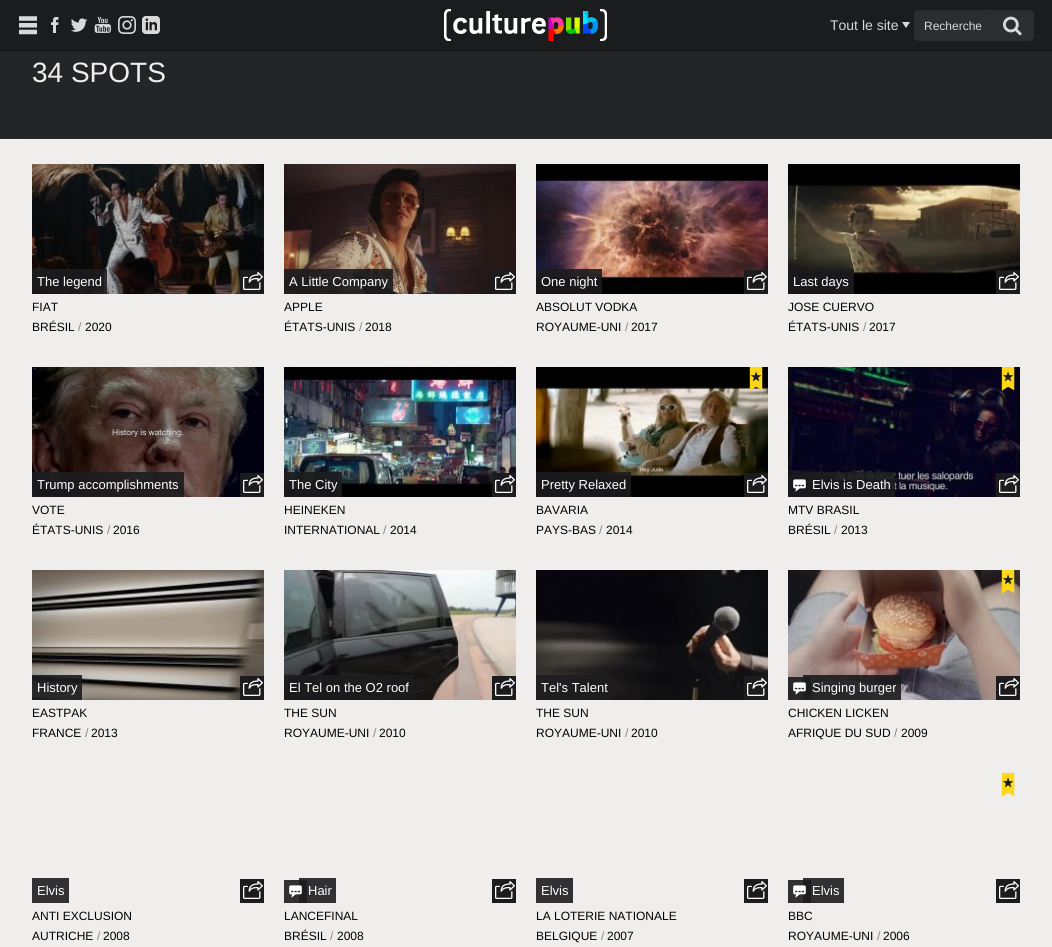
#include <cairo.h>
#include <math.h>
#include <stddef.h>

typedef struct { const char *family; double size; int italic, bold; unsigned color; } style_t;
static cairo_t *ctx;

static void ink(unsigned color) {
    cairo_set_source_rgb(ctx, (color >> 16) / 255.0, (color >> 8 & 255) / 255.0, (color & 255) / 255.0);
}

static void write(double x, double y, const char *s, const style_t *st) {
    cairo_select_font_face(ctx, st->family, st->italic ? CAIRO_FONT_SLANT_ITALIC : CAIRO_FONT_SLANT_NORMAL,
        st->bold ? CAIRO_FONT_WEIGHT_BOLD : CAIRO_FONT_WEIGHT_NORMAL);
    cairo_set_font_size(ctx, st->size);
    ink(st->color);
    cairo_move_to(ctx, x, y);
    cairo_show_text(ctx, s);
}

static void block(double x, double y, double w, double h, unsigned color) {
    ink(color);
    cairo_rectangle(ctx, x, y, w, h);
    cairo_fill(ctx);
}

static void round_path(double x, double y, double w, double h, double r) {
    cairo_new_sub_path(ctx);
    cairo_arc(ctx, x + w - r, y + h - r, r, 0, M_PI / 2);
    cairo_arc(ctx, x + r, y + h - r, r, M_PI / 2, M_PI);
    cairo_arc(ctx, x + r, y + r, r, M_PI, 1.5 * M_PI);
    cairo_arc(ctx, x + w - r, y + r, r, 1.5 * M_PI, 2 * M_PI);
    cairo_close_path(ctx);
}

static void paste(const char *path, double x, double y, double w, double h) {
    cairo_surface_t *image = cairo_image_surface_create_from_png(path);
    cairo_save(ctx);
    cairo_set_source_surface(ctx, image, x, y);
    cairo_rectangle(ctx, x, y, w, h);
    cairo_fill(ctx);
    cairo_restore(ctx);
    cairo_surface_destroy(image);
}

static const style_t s1 = {"Liberation Sans", 14, 0, 0, 0xdad9d9};
static const style_t s2 = {"Liberation Sans", 12, 0, 0, 0xdad9d9};
static const style_t s3 = {"Liberation Sans", 28, 0, 0, 0xf0eeed};
static const style_t s4 = {"Liberation Sans", 13, 0, 0, 0xffffff};
static const style_t s5 = {"Liberation Sans", 12, 0, 0, 0x000000};
static const style_t s6 = {"Liberation Sans", 12, 0, 0, 0x858585};

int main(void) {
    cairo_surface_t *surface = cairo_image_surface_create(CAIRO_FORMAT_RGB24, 1052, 947);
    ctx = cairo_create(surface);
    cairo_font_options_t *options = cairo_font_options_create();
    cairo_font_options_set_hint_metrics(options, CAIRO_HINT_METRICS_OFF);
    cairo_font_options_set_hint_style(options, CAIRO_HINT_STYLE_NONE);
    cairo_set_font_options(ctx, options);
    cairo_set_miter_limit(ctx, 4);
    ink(0xf0eeed);
    cairo_paint(ctx);
    block(0, 50, 1052, 1, 0x121314);
    block(0, 0, 1052, 50, 0x1b1c1e);
    paste("pic1.png", 19, 16, 18, 19);
    paste("pic2.png", 444, 9, 163, 32);
    paste("pic3.png", 51, 17, 8, 16);
    paste("pic4.png", 71, 18, 17, 14);
    paste("pic5.png", 94, 16, 17, 17);
    paste("pic6.png", 118, 16, 18, 18);
    paste("pic7.png", 142, 16, 18, 18);
    write(830, 30, "Tout le site", &s1);
    cairo_new_path(ctx);
    cairo_move_to(ctx, 902, 22);
    cairo_line_to(ctx, 910, 22);
    cairo_line_to(ctx, 906, 28);
    cairo_close_path(ctx);
    cairo_fill(ctx);
    ink(0x2c2d2f);
    round_path(914, 10, 120, 31, 5);
    cairo_fill(ctx);
    ink(0x292a2b);
    cairo_new_path(ctx);
    cairo_move_to(ctx, 929, 11);
    cairo_line_to(ctx, 979, 11);
    cairo_curve_to(ctx, 987, 11, 994, 18, 994, 26);
    cairo_line_to(ctx, 994, 25);
    cairo_curve_to(ctx, 994, 17, 987, 10, 979, 10);
    cairo_line_to(ctx, 929, 10);
    cairo_curve_to(ctx, 921, 10, 914, 17, 914, 25);
    cairo_line_to(ctx, 914, 26);
    cairo_curve_to(ctx, 914, 18, 921, 11, 929, 11);
    cairo_close_path(ctx);
    cairo_fill(ctx);
    write(924, 30, "Recherche", &s2);
    paste("pic8.png", 1003, 16, 19, 20);
    block(0, 139, 1052, 1, 0xf5f3f2);
    block(0, 51, 1052, 88, 0x242527);
    write(32, 82, "34 SPOTS", &s3);
    block(22, 139, 1008, 1, 0xefeeec);
    block(808, 878, 36, 25, 0x313133);
    block(803, 878, 5, 2, 0x313133);
    block(304, 878, 32, 25, 0x313133);
    block(299, 878, 5, 2, 0x313133);
    paste("pic9.png", 32, 164, 232, 130);
    cairo_set_source_rgba(ctx, 0.11, 0.11, 0.118, 0.9);
    cairo_rectangle(ctx, 37, 269, 65, 25);
    cairo_fill(ctx);
    write(37, 286, "The legend", &s4);
    cairo_set_source_rgba(ctx, 0.11, 0.11, 0.118, 0.9);
    cairo_rectangle(ctx, 32, 269, 5, 25);
    cairo_fill(ctx);
    cairo_rectangle(ctx, 102, 269, 5, 25);
    cairo_fill(ctx);
    block(240, 270, 24, 24, 0x1c1c1e);
    paste("pic10.png", 243, 272, 20, 18);
    write(32, 311, "FIAT", &s5);
    write(32, 331, "BRÉSIL", &s5);
    write(78, 331, "/", &s6);
    write(85, 331, "2020", &s5);
    paste("pic11.png", 284, 164, 232, 130);
    cairo_set_source_rgba(ctx, 0.11, 0.11, 0.118, 0.9);
    cairo_rectangle(ctx, 289, 269, 99, 25);
    cairo_fill(ctx);
    write(289, 286, "A Little Company", &s4);
    cairo_set_source_rgba(ctx, 0.11, 0.11, 0.118, 0.9);
    cairo_rectangle(ctx, 284, 269, 5, 25);
    cairo_fill(ctx);
    cairo_rectangle(ctx, 388, 269, 5, 25);
    cairo_fill(ctx);
    block(492, 270, 24, 24, 0x1c1c1e);
    paste("pic10.png", 495, 272, 20, 18);
    write(284, 311, "APPLE", &s5);
    write(284, 331, "ÉTATS-UNIS", &s5);
    write(359, 331, "/", &s6);
    write(365, 331, "2018", &s5);
    paste("pic12.png", 536, 164, 232, 130);
    cairo_set_source_rgba(ctx, 0.11, 0.11, 0.118, 0.9);
    cairo_rectangle(ctx, 597, 269, 5, 25);
    cairo_fill(ctx);
    cairo_rectangle(ctx, 541, 269, 56, 25);
    cairo_fill(ctx);
    write(541, 286, "One night", &s4);
    cairo_set_source_rgba(ctx, 0.11, 0.11, 0.118, 0.9);
    cairo_rectangle(ctx, 536, 269, 5, 25);
    cairo_fill(ctx);
    block(744, 270, 24, 24, 0x1c1c1e);
    paste("pic10.png", 747, 272, 20, 18);
    write(536, 311, "ABSOLUT VODKA", &s5);
    write(536, 331, "ROYAUME-UNI", &s5);
    write(625, 331, "/", &s6);
    write(631, 331, "2017", &s5);
    paste("pic13.png", 788, 164, 232, 130);
    cairo_set_source_rgba(ctx, 0.11, 0.11, 0.118, 0.9);
    cairo_rectangle(ctx, 793, 269, 56, 25);
    cairo_fill(ctx);
    write(793, 286, "Last days", &s4);
    cairo_set_source_rgba(ctx, 0.11, 0.11, 0.118, 0.9);
    cairo_rectangle(ctx, 788, 269, 5, 25);
    cairo_fill(ctx);
    cairo_rectangle(ctx, 849, 269, 5, 25);
    cairo_fill(ctx);
    block(996, 270, 24, 24, 0x1c1c1e);
    paste("pic10.png", 999, 272, 20, 18);
    write(788, 311, "JOSE CUERVO", &s5);
    write(788, 331, "ÉTATS-UNIS", &s5);
    write(863, 331, "/", &s6);
    write(869, 331, "2017", &s5);
    paste("pic14.png", 32, 367, 232, 130);
    cairo_set_source_rgba(ctx, 0.11, 0.11, 0.118, 0.9);
    cairo_rectangle(ctx, 37, 472, 142, 25);
    cairo_fill(ctx);
    write(37, 489, "Trump accomplishments", &s4);
    cairo_set_source_rgba(ctx, 0.11, 0.11, 0.118, 0.9);
    cairo_rectangle(ctx, 32, 472, 5, 25);
    cairo_fill(ctx);
    cairo_rectangle(ctx, 179, 472, 5, 25);
    cairo_fill(ctx);
    block(240, 473, 24, 24, 0x1c1c1e);
    paste("pic10.png", 243, 475, 20, 18);
    write(32, 514, "VOTE", &s5);
    write(32, 534, "ÉTATS-UNIS", &s5);
    write(107, 534, "/", &s6);
    write(113, 534, "2016", &s5);
    paste("pic15.png", 284, 367, 232, 130);
    cairo_set_source_rgba(ctx, 0.11, 0.11, 0.118, 0.9);
    cairo_rectangle(ctx, 337, 472, 5, 25);
    cairo_fill(ctx);
    cairo_rectangle(ctx, 289, 472, 48, 25);
    cairo_fill(ctx);
    write(289, 489, "The City", &s4);
    cairo_set_source_rgba(ctx, 0.11, 0.11, 0.118, 0.9);
    cairo_rectangle(ctx, 284, 472, 5, 25);
    cairo_fill(ctx);
    block(492, 473, 24, 24, 0x1c1c1e);
    paste("pic10.png", 495, 475, 20, 18);
    write(284, 514, "HEINEKEN", &s5);
    write(284, 534, "INTERNATIONAL", &s5);
    write(383, 534, "/", &s6);
    write(390, 534, "2014", &s5);
    paste("pic17.png", 536, 367, 232, 130);
    block(751, 371, 10, 11, 0x1b1c1e);
    paste("pic16.png", 749, 366, 14, 25);
    cairo_set_source_rgba(ctx, 0.11, 0.11, 0.118, 0.9);
    cairo_rectangle(ctx, 541, 472, 85, 25);
    cairo_fill(ctx);
    write(541, 489, "Pretty Relaxed", &s4);
    cairo_set_source_rgba(ctx, 0.11, 0.11, 0.118, 0.9);
    cairo_rectangle(ctx, 536, 472, 5, 25);
    cairo_fill(ctx);
    cairo_rectangle(ctx, 626, 472, 5, 25);
    cairo_fill(ctx);
    block(744, 473, 24, 24, 0x1c1c1e);
    paste("pic10.png", 747, 475, 20, 18);
    write(536, 514, "BAVARIA", &s5);
    write(536, 534, "PAYS-BAS", &s5);
    write(599, 534, "/", &s6);
    write(606, 534, "2014", &s5);
    paste("pic19.png", 788, 367, 232, 130);
    block(1003, 371, 10, 11, 0x1b1c1e);
    paste("pic18.png", 1001, 366, 14, 25);
    cairo_set_source_rgba(ctx, 0.11, 0.11, 0.118, 0.9);
    cairo_rectangle(ctx, 793, 474, 13, 23);
    cairo_fill(ctx);
    paste("pic20.png", 793, 479, 13, 13);
    cairo_rectangle(ctx, 806, 474, 5, 23);
    cairo_fill(ctx);
    cairo_rectangle(ctx, 808, 472, 82, 25);
    cairo_fill(ctx);
    write(812, 489, "Elvis is Death", &s4);
    cairo_set_source_rgba(ctx, 0.11, 0.11, 0.118, 0.9);
    cairo_rectangle(ctx, 788, 474, 5, 23);
    cairo_fill(ctx);
    cairo_rectangle(ctx, 803, 472, 5, 2);
    cairo_fill(ctx);
    cairo_rectangle(ctx, 890, 472, 5, 25);
    cairo_fill(ctx);
    block(996, 473, 24, 24, 0x1c1c1e);
    paste("pic10.png", 999, 475, 20, 18);
    write(788, 514, "MTV BRASIL", &s5);
    write(788, 534, "BRÉSIL", &s5);
    write(834, 534, "/", &s6);
    write(841, 534, "2013", &s5);
    paste("pic21.png", 32, 570, 232, 130);
    cairo_set_source_rgba(ctx, 0.11, 0.11, 0.118, 0.9);
    cairo_rectangle(ctx, 77, 675, 5, 25);
    cairo_fill(ctx);
    cairo_rectangle(ctx, 37, 675, 40, 25);
    cairo_fill(ctx);
    write(37, 692, "History", &s4);
    cairo_set_source_rgba(ctx, 0.11, 0.11, 0.118, 0.9);
    cairo_rectangle(ctx, 32, 675, 5, 25);
    cairo_fill(ctx);
    block(240, 676, 24, 24, 0x1c1c1e);
    paste("pic10.png", 243, 678, 20, 18);
    write(32, 717, "EASTPAK", &s5);
    write(32, 737, "FRANCE", &s5);
    write(85, 737, "/", &s6);
    write(91, 737, "2013", &s5);
    paste("pic22.png", 284, 570, 232, 130);
    cairo_set_source_rgba(ctx, 0.11, 0.11, 0.118, 0.9);
    cairo_rectangle(ctx, 409, 675, 5, 25);
    cairo_fill(ctx);
    cairo_rectangle(ctx, 289, 675, 120, 25);
    cairo_fill(ctx);
    write(289, 692, "El Tel on the O2 roof", &s4);
    cairo_set_source_rgba(ctx, 0.11, 0.11, 0.118, 0.9);
    cairo_rectangle(ctx, 284, 675, 5, 25);
    cairo_fill(ctx);
    block(492, 676, 24, 24, 0x1c1c1e);
    paste("pic10.png", 495, 678, 20, 18);
    write(284, 717, "THE SUN", &s5);
    write(284, 737, "ROYAUME-UNI", &s5);
    write(373, 737, "/", &s6);
    write(379, 737, "2010", &s5);
    paste("pic23.png", 536, 570, 232, 130);
    cairo_set_source_rgba(ctx, 0.11, 0.11, 0.118, 0.9);
    cairo_rectangle(ctx, 541, 675, 67, 25);
    cairo_fill(ctx);
    write(541, 692, "Tel's Talent", &s4);
    cairo_set_source_rgba(ctx, 0.11, 0.11, 0.118, 0.9);
    cairo_rectangle(ctx, 536, 675, 5, 25);
    cairo_fill(ctx);
    cairo_rectangle(ctx, 608, 675, 5, 25);
    cairo_fill(ctx);
    block(744, 676, 24, 24, 0x1c1c1e);
    paste("pic10.png", 747, 678, 20, 18);
    write(536, 717, "THE SUN", &s5);
    write(536, 737, "ROYAUME-UNI", &s5);
    write(625, 737, "/", &s6);
    write(631, 737, "2010", &s5);
    paste("pic25.png", 788, 570, 232, 130);
    block(1003, 574, 10, 11, 0x1b1c1e);
    paste("pic24.png", 1001, 569, 14, 25);
    cairo_set_source_rgba(ctx, 0.11, 0.11, 0.118, 0.9);
    cairo_rectangle(ctx, 793, 677, 13, 23);
    cairo_fill(ctx);
    cairo_rectangle(ctx, 806, 677, 5, 23);
    cairo_fill(ctx);
    cairo_rectangle(ctx, 803, 675, 5, 25);
    cairo_fill(ctx);
    paste("pic26.png", 793, 682, 13, 13);
    cairo_rectangle(ctx, 808, 675, 88, 25);
    cairo_fill(ctx);
    write(812, 692, "Singing burger", &s4);
    cairo_set_source_rgba(ctx, 0.11, 0.11, 0.118, 0.9);
    cairo_rectangle(ctx, 788, 677, 5, 23);
    cairo_fill(ctx);
    cairo_rectangle(ctx, 896, 675, 5, 25);
    cairo_fill(ctx);
    block(996, 676, 24, 24, 0x1c1c1e);
    paste("pic10.png", 999, 678, 20, 18);
    write(788, 717, "CHICKEN LICKEN", &s5);
    write(788, 737, "AFRIQUE DU SUD", &s5);
    write(894, 737, "/", &s6);
    write(901, 737, "2009", &s5);
    block(37, 878, 32, 25, 0x313133);
    write(37, 895, "Elvis", &s4);
    block(32, 878, 5, 25, 0x313133);
    block(240, 879, 24, 24, 0x1c1c1e);
    paste("pic10.png", 243, 881, 20, 18);
    write(32, 920, "ANTI EXCLUSION", &s5);
    write(32, 940, "AUTRICHE", &s5);
    write(97, 940, "/", &s6);
    write(103, 940, "2008", &s5);
    block(284, 880, 15, 23, 0x313133);
    block(299, 880, 8, 23, 0x1e1e20);
    paste("pic27.png", 289, 885, 13, 13);
    write(308, 895, "Hair", &s4);
    block(492, 879, 24, 24, 0x1c1c1e);
    paste("pic10.png", 495, 881, 20, 18);
    write(284, 920, "LANCEFINAL", &s5);
    write(284, 940, "BRÉSIL", &s5);
    write(330, 940, "/", &s6);
    write(337, 940, "2008", &s5);
    block(541, 878, 32, 25, 0x313133);
    write(541, 895, "Elvis", &s4);
    block(536, 878, 5, 25, 0x313133);
    block(744, 879, 24, 24, 0x1c1c1e);
    paste("pic10.png", 747, 881, 20, 18);
    write(536, 920, "LA LOTERIE NATIONALE", &s5);
    write(536, 940, "BELGIQUE", &s5);
    write(601, 940, "/", &s6);
    write(607, 940, "2007", &s5);
    block(1003, 777, 10, 11, 0x1b1c1e);
    paste("pic28.png", 1001, 772, 14, 25);
    block(788, 880, 15, 23, 0x313133);
    block(803, 880, 8, 23, 0x1e1e20);
    paste("pic27.png", 793, 885, 13, 13);
    write(812, 895, "Elvis", &s4);
    block(996, 879, 24, 24, 0x1c1c1e);
    paste("pic10.png", 999, 881, 20, 18);
    write(788, 920, "BBC", &s5);
    write(788, 940, "ROYAUME-UNI", &s5);
    write(877, 940, "/", &s6);
    write(883, 940, "2006", &s5);
    cairo_surface_write_to_png(surface, "screenshot.png");
    cairo_font_options_destroy(options);
    cairo_destroy(ctx);
    cairo_surface_destroy(surface);
    return 0;
}
